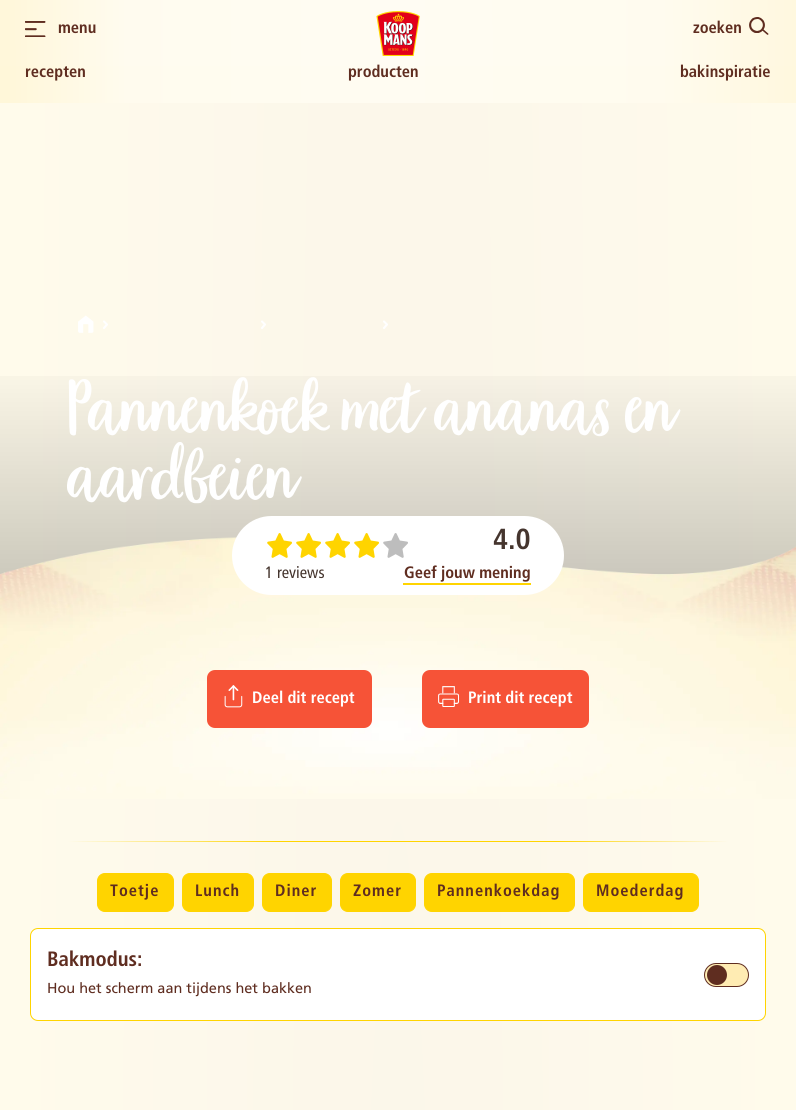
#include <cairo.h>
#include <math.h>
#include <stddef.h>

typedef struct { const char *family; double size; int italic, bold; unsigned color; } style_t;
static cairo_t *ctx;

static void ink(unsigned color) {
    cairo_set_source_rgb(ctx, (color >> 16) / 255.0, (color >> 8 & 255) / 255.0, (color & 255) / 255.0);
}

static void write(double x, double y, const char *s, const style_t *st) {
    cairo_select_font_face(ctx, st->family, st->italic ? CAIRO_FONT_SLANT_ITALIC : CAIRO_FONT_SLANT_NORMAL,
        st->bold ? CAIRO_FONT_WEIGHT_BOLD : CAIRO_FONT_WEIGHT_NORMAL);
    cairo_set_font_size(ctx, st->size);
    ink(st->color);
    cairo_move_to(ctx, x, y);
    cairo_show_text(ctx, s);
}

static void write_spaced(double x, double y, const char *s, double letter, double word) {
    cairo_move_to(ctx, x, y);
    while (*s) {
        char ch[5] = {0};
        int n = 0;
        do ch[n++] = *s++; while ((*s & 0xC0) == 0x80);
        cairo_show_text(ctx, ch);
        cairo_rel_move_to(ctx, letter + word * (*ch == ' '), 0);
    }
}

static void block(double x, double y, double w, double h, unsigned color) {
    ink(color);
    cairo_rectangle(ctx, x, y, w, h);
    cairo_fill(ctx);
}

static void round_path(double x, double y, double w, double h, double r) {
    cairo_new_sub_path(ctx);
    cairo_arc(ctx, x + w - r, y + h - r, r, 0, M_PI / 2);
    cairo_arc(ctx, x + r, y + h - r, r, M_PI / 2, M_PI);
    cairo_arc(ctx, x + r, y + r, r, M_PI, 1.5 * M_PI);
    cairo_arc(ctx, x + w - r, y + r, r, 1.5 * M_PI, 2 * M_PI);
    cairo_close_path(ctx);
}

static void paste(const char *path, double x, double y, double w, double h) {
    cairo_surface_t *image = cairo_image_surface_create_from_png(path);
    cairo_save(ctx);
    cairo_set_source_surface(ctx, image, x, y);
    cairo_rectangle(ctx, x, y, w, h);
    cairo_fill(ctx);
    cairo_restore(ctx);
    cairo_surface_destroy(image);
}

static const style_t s1 = {"Frutiger", 16.5, 0, 1, 0x5f2d20};
static const style_t s2 = {"Frutiger", 29, 0, 1, 0x45352e};
static const style_t s3 = {"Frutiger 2", 16.5, 0, 0, 0x45352e};
static const style_t s4 = {"Frutiger", 16.5, 0, 1, 0xffffff};
static const style_t s5 = {"Frutiger", 20.75, 0, 1, 0x5f2d20};
static const style_t s6 = {"Frutiger", 14.5, 0, 0, 0x5f2d20};

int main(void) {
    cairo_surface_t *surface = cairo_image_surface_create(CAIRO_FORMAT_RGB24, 796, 1110);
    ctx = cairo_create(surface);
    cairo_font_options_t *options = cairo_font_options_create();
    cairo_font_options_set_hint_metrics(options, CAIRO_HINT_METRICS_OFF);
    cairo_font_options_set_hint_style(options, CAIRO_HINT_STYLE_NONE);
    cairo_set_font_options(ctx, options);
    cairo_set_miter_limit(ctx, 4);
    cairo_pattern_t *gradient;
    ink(0xffffff);
    cairo_paint(ctx);
    gradient = cairo_pattern_create_radial(0, 0, 0, 0, 0, 1);
    cairo_pattern_set_matrix(gradient, &(cairo_matrix_t){1.0 / 394, 0, 0, 1.0 / 18167, -1.0 * 398 / 394, -1.0 * 3436 / 18167});
    cairo_pattern_add_color_stop_rgba(gradient, 0, 0.984, 0.965, 0.918, 1);
    cairo_pattern_add_color_stop_rgba(gradient, 1, 1, 0.984, 0.922, 1);
    cairo_set_source(ctx, gradient);
    cairo_pattern_destroy(gradient);
    cairo_rectangle(ctx, 0, 66, 796, 1044);
    cairo_fill(ctx);
    gradient = cairo_pattern_create_linear(0, 52, 796, 51);
    cairo_pattern_add_color_stop_rgba(gradient, 0.01, 1, 0.965, 0.847, 0.95);
    cairo_pattern_add_color_stop_rgba(gradient, 0.16, 1, 0.984, 0.933, 0.95);
    cairo_pattern_add_color_stop_rgba(gradient, 0.5, 1, 0.988, 0.949, 0.95);
    cairo_pattern_add_color_stop_rgba(gradient, 0.83, 1, 0.984, 0.933, 0.95);
    cairo_pattern_add_color_stop_rgba(gradient, 1, 1, 0.969, 0.867, 0.95);
    cairo_set_source(ctx, gradient);
    cairo_pattern_destroy(gradient);
    cairo_rectangle(ctx, 0, 0, 796, 103);
    cairo_fill(ctx);
    paste("pic1.png", 376, 11, 44, 45);
    paste("pic2.png", 25, 21, 21, 16);
    write(58, 33, "menu", &s1);
    write(693, 33, "zoeken", &s1);
    paste("pic3.png", 749, 17, 20, 18);
    write(25, 77, "recepten", &s1);
    write(348, 77, "producten", &s1);
    write(680, 77, "bakinspiratie", &s1);
    paste("pic4.png", 78, 315, 16, 18);
    cairo_new_path(ctx);
    cairo_move_to(ctx, 104, 321.5);
    cairo_line_to(ctx, 107, 324.5);
    cairo_line_to(ctx, 104, 328);
    ink(0xffffff);
    cairo_set_line_width(ctx, 2.1);
    cairo_set_line_cap(ctx, CAIRO_LINE_CAP_ROUND);
    cairo_set_line_join(ctx, CAIRO_LINE_JOIN_ROUND);
    cairo_stroke(ctx);
    cairo_new_path(ctx);
    cairo_move_to(ctx, 262, 321.5);
    cairo_line_to(ctx, 265, 324.5);
    cairo_line_to(ctx, 262, 328);
    cairo_stroke(ctx);
    cairo_new_path(ctx);
    cairo_move_to(ctx, 384, 321.5);
    cairo_line_to(ctx, 387, 324.5);
    cairo_line_to(ctx, 384, 328);
    cairo_stroke(ctx);
    gradient = cairo_pattern_create_linear(398, 636, 398, 66);
    cairo_pattern_add_color_stop_rgba(gradient, 0, 0, 0, 0, 0.25);
    cairo_pattern_add_color_stop_rgba(gradient, 0.5, 0, 0, 0, 0);
    cairo_set_source(ctx, gradient);
    cairo_pattern_destroy(gradient);
    cairo_rectangle(ctx, 0, 376, 796, 199);
    cairo_fill(ctx);
    paste("pic5.png", 68, 377, 613, 60);
    paste("pic6.png", 67, 442, 235, 62);
    paste("pic9.png", 0, 537, 796, 262);
    ink(0xffffff);
    round_path(232, 516, 332, 79, 39.5);
    cairo_fill(ctx);
    paste("pic7.png", 267, 533, 25, 25);
    paste("pic7.png", 296, 533, 25, 25);
    paste("pic7.png", 325, 533, 25, 25);
    paste("pic7.png", 354, 533, 25, 25);
    paste("pic8.png", 383, 533, 25, 25);
    write(493, 549, "4.0", &s2);
    write(265, 578, "1 reviews", &s3);
    write(404, 578, "Geef jouw mening", &s1);
    block(403, 583, 128, 2, 0xffd400);
    ink(0xf65337);
    round_path(207, 670, 165, 58, 8);
    cairo_fill(ctx);
    paste("pic10.png", 224, 685, 19, 23);
    write(252, 703, "Deel dit recept", &s4);
    ink(0xf65337);
    round_path(422, 670, 167, 58, 8);
    cairo_fill(ctx);
    paste("pic11.png", 438, 686, 22, 21);
    write(468, 703, "Print dit recept", &s4);
    gradient = cairo_pattern_create_linear(728, 841, 68, 842);
    cairo_pattern_add_color_stop_rgba(gradient, 0, 1, 0.831, 0, 0);
    cairo_pattern_add_color_stop_rgba(gradient, 0.26, 1, 0.831, 0, 1);
    cairo_pattern_add_color_stop_rgba(gradient, 0.68, 1, 0.831, 0, 1);
    cairo_pattern_add_color_stop_rgba(gradient, 1, 1, 0.831, 0, 0);
    cairo_set_source(ctx, gradient);
    cairo_pattern_destroy(gradient);
    cairo_rectangle(ctx, 68, 841, 660, 1);
    cairo_fill(ctx);
    ink(0xffd400);
    round_path(97.5, 873.5, 76, 38, 7.5);
    cairo_fill_preserve(ctx);
    cairo_set_line_width(ctx, 1);
    cairo_set_line_cap(ctx, CAIRO_LINE_CAP_BUTT);
    cairo_set_line_join(ctx, CAIRO_LINE_JOIN_MITER);
    cairo_stroke(ctx);
    ink(0x5f2d20);
    write_spaced(110, 896, "Toetje", 1, 0);
    ink(0xffd400);
    round_path(182.5, 873.5, 71, 38, 7.5);
    cairo_fill_preserve(ctx);
    cairo_stroke(ctx);
    ink(0x5f2d20);
    write_spaced(195, 896, "Lunch", 1, 0);
    ink(0xffd400);
    round_path(262.5, 873.5, 69, 38, 7.5);
    cairo_fill_preserve(ctx);
    cairo_stroke(ctx);
    ink(0x5f2d20);
    write_spaced(275, 896, "Diner", 1, 0);
    ink(0xffd400);
    round_path(340.5, 873.5, 75, 38, 7.5);
    cairo_fill_preserve(ctx);
    cairo_stroke(ctx);
    ink(0x5f2d20);
    write_spaced(353, 896, "Zomer", 1, 0);
    ink(0xffd400);
    round_path(424.5, 873.5, 150, 38, 7.5);
    cairo_fill_preserve(ctx);
    cairo_stroke(ctx);
    ink(0x5f2d20);
    write_spaced(437, 896, "Pannenkoekdag", 1, 0);
    ink(0xffd400);
    round_path(583.5, 873.5, 115, 38, 7.5);
    cairo_fill_preserve(ctx);
    cairo_stroke(ctx);
    ink(0x5f2d20);
    write_spaced(596, 896, "Moederdag", 1, 0);
    ink(0xffffff);
    round_path(30.5, 928.5, 735, 92, 7.5);
    cairo_fill_preserve(ctx);
    ink(0xffd400);
    cairo_stroke(ctx);
    write(47, 966, "Bakmodus:", &s5);
    write(47, 993, "Hou het scherm aan tijdens het bakken", &s6);
    ink(0xffecb3);
    round_path(704.5, 963.5, 44, 23, 11.5);
    cairo_fill_preserve(ctx);
    ink(0x5f2d20);
    cairo_stroke(ctx);
    cairo_arc(ctx, 717, 975, 10, 0, 2 * M_PI);
    cairo_fill(ctx);
    cairo_surface_write_to_png(surface, "screenshot.png");
    cairo_font_options_destroy(options);
    cairo_destroy(ctx);
    cairo_surface_destroy(surface);
    return 0;
}
